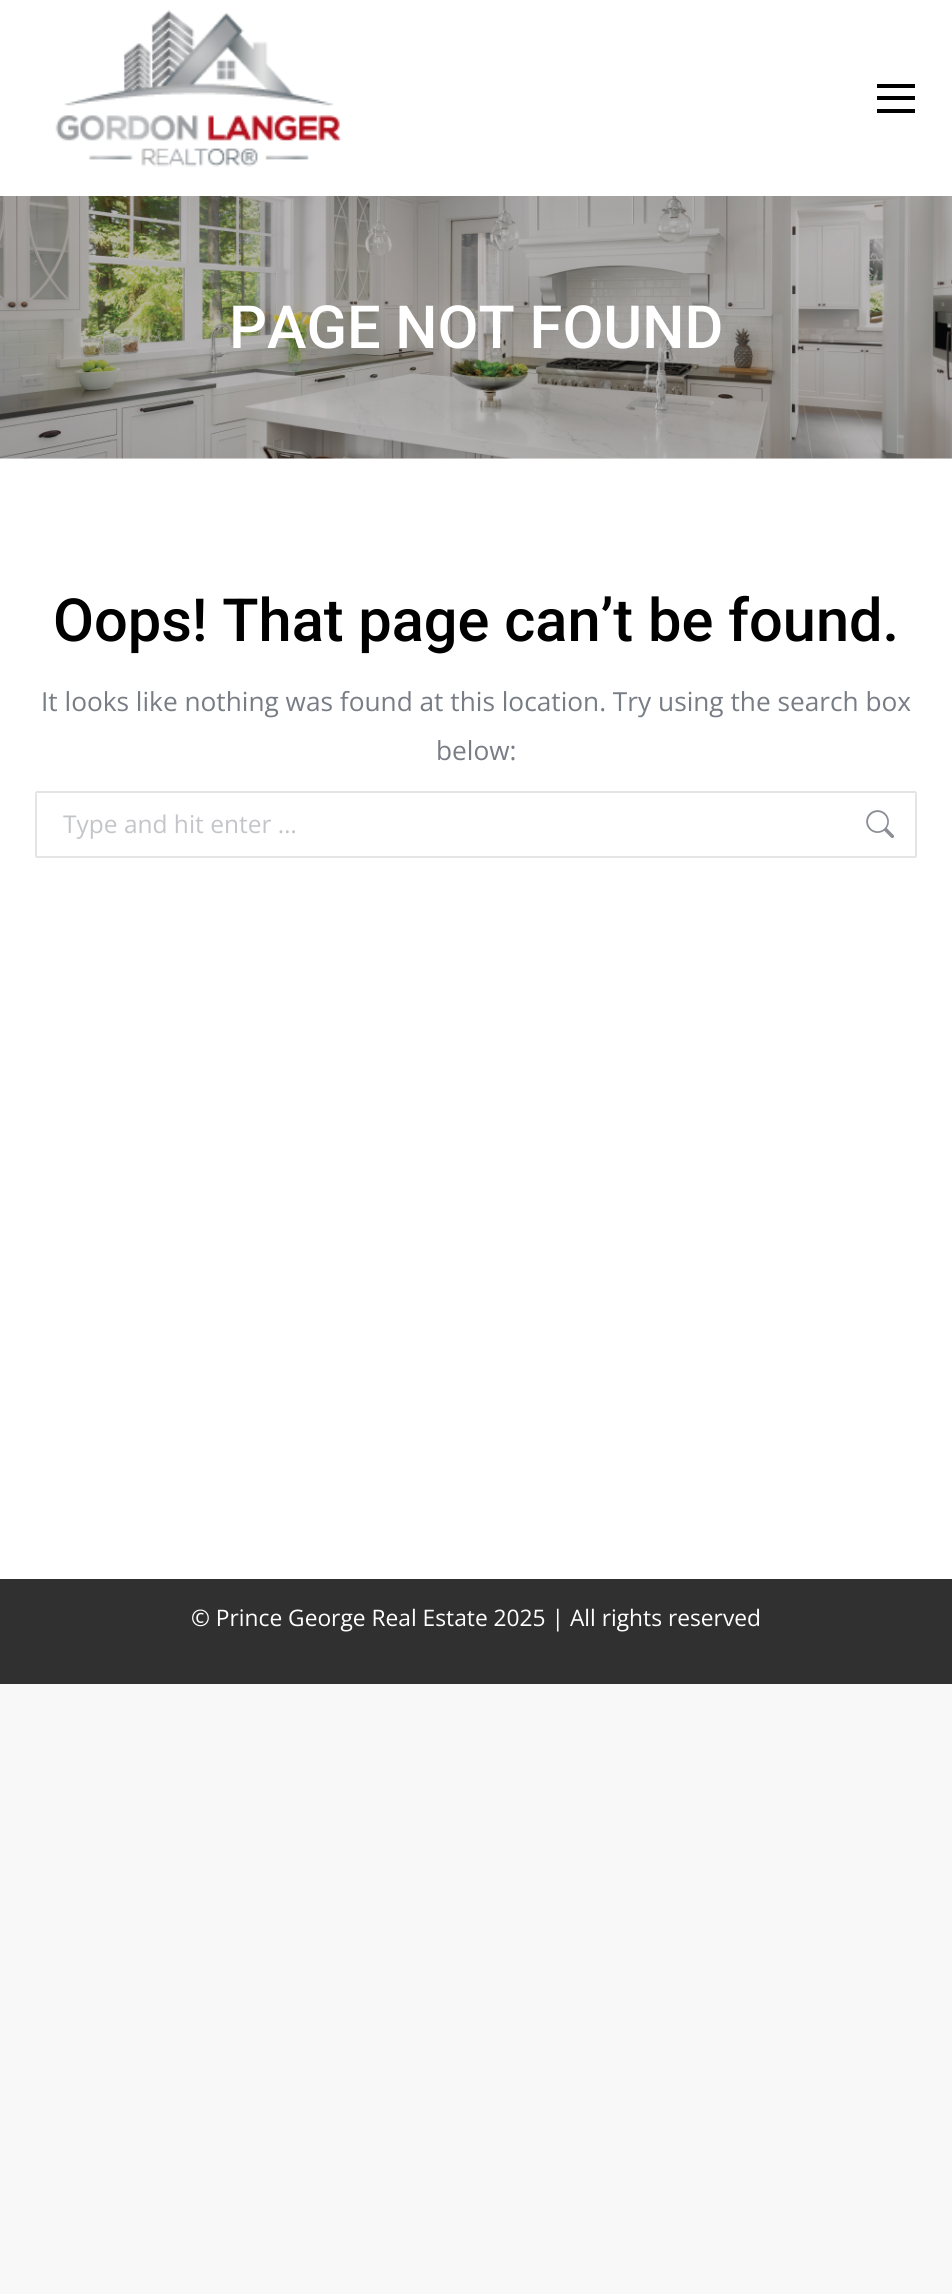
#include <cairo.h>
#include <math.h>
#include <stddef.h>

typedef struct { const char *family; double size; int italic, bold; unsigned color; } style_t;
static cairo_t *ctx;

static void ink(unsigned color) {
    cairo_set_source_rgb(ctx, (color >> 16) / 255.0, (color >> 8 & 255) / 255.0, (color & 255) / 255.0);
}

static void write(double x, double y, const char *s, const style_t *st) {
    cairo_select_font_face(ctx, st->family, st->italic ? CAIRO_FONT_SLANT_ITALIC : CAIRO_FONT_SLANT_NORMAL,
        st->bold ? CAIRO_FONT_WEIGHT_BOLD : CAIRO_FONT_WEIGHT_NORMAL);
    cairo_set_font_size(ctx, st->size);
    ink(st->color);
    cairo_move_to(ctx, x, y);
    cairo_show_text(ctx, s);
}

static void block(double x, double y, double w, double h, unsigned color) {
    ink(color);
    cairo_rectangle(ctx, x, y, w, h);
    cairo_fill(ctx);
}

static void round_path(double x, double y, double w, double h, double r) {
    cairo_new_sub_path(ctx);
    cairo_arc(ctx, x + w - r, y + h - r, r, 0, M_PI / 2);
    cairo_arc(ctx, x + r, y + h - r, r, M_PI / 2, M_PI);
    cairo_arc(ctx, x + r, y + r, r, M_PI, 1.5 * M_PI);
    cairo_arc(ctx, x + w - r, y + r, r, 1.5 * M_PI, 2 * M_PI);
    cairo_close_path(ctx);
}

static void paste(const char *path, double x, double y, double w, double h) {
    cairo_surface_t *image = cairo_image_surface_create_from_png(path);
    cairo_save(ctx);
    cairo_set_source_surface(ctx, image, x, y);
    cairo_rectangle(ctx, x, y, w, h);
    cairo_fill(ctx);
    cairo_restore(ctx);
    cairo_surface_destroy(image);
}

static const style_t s1 = {"Roboto Medium", 59.5, 0, 0, 0xffffff};
static const style_t s2 = {"Roboto Medium", 59.5, 0, 0, 0x000000};
static const style_t s3 = {"Open Sans", 26.25, 0, 0, 0x787d85};
static const style_t s4 = {"Open Sans", 24.5, 0, 0, 0xc4c5c9};
static const style_t s5 = {"Open Sans", 22.75, 0, 0, 0xffffff};

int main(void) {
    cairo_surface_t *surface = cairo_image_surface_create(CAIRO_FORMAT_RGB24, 952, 2294);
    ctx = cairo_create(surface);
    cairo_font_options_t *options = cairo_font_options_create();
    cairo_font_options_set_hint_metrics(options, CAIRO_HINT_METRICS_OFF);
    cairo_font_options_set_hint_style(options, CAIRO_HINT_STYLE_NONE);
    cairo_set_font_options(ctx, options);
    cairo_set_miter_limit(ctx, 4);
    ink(0xf8f8f9);
    cairo_paint(ctx);
    block(0, 0, 952, 1579, 0xffffff);
    paste("pic1.png", 55, 10, 287, 157);
    block(877, 84, 38, 4, 0x000000);
    block(877, 96, 38, 4, 0x000000);
    block(877, 109, 38, 4, 0x000000);
    block(0, 458, 952, 1, 0xf7f7f7);
    paste("pic2.png", 0, 196, 952, 263);
    write(229, 348, "PAGE NOT FOUND", &s1);
    write(53, 641, "Oops! That page can’t be found.", &s2);
    write(41, 711, "It looks like nothing was found at this location. Try using the search box", &s3);
    write(436, 760, "below:", &s3);
    round_path(36, 792, 880, 65, 1);
    ink(0xe5e5e5);
    cairo_stroke(ctx);
    write(63, 833, "Type and hit enter …", &s4);
    paste("pic3.png", 866, 810, 28, 28);
    block(0, 1579, 952, 105, 0x303030);
    write(191, 1626, "© Prince George Real Estate 2025 | All rights reserved", &s5);
    cairo_surface_write_to_png(surface, "screenshot.png");
    cairo_font_options_destroy(options);
    cairo_destroy(ctx);
    cairo_surface_destroy(surface);
    return 0;
}
